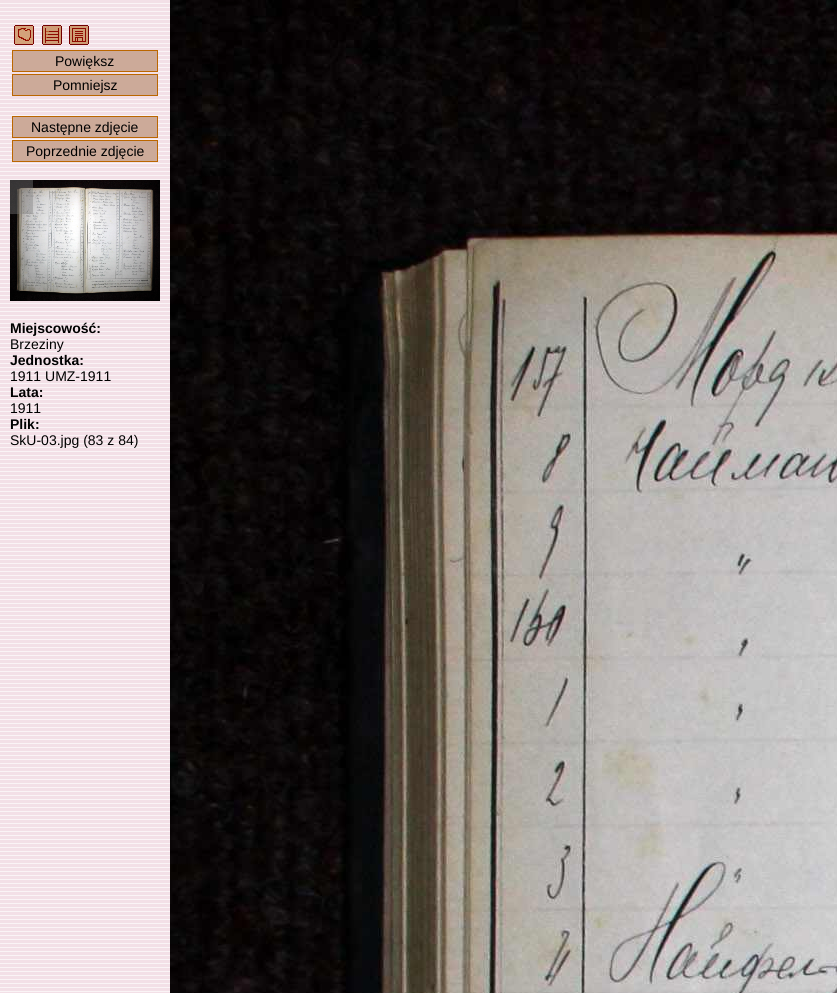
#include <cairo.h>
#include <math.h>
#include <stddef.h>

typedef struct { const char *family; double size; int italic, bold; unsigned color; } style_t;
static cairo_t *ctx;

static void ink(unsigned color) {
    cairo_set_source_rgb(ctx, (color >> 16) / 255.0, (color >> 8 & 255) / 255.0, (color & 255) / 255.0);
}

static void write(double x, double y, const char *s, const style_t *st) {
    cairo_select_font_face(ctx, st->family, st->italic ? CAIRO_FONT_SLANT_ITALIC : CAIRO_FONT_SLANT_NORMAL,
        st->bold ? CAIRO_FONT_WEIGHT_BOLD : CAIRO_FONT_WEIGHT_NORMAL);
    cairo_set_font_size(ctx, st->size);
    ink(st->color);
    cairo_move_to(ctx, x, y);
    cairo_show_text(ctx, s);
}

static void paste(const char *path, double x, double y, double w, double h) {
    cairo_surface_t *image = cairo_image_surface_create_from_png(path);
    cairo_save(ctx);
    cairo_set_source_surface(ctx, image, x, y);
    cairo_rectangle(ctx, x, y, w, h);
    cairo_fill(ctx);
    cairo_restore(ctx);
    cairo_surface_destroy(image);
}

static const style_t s1 = {"Liberation Sans", 14, 0, 0, 0x000000};
static const style_t s2 = {"Liberation Sans", 14, 0, 1, 0x000000};

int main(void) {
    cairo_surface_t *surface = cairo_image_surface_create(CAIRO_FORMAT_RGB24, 837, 993);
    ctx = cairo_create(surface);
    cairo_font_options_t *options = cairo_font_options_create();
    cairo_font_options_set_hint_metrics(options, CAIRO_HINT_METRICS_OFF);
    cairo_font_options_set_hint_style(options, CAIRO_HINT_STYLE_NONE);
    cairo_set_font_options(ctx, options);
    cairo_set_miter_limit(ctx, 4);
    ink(0xffffff);
    cairo_paint(ctx);
    paste("pic1.png", 0, 0, 170, 993);
    paste("pic2.png", 14, 25, 20, 20);
    paste("pic3.png", 42, 25, 20, 20);
    paste("pic4.png", 69, 25, 20, 20);
    ink(0xccaa99);
    cairo_rectangle(ctx, 12.5, 50.5, 145, 21);
    cairo_fill_preserve(ctx);
    ink(0xbb6600);
    cairo_set_line_width(ctx, 1);
    cairo_stroke(ctx);
    write(55, 66, "Powiększ", &s1);
    ink(0xccaa99);
    cairo_rectangle(ctx, 12.5, 74.5, 145, 21);
    cairo_fill_preserve(ctx);
    ink(0xbb6600);
    cairo_stroke(ctx);
    write(53, 90, "Pomniejsz", &s1);
    ink(0xccaa99);
    cairo_rectangle(ctx, 12.5, 116.5, 145, 21);
    cairo_fill_preserve(ctx);
    ink(0xbb6600);
    cairo_stroke(ctx);
    write(31, 132, "Następne zdjęcie", &s1);
    ink(0xccaa99);
    cairo_rectangle(ctx, 12.5, 140.5, 145, 21);
    cairo_fill_preserve(ctx);
    ink(0xbb6600);
    cairo_stroke(ctx);
    write(26, 156, "Poprzednie zdjęcie", &s1);
    paste("pic5.png", 10, 180, 150, 121);
    write(10, 333, "Miejscowość:", &s2);
    write(10, 349, "Brzeziny", &s1);
    write(10, 365, "Jednostka:", &s2);
    write(10, 381, "1911 UMZ-1911", &s1);
    write(10, 397, "Lata:", &s2);
    write(10, 413, "1911", &s1);
    write(10, 429, "Plik:", &s2);
    write(10, 445, "SkU-03.jpg (83 z 84)", &s1);
    paste("pic6.png", 170, 0, 667, 993);
    cairo_surface_write_to_png(surface, "screenshot.png");
    cairo_font_options_destroy(options);
    cairo_destroy(ctx);
    cairo_surface_destroy(surface);
    return 0;
}
